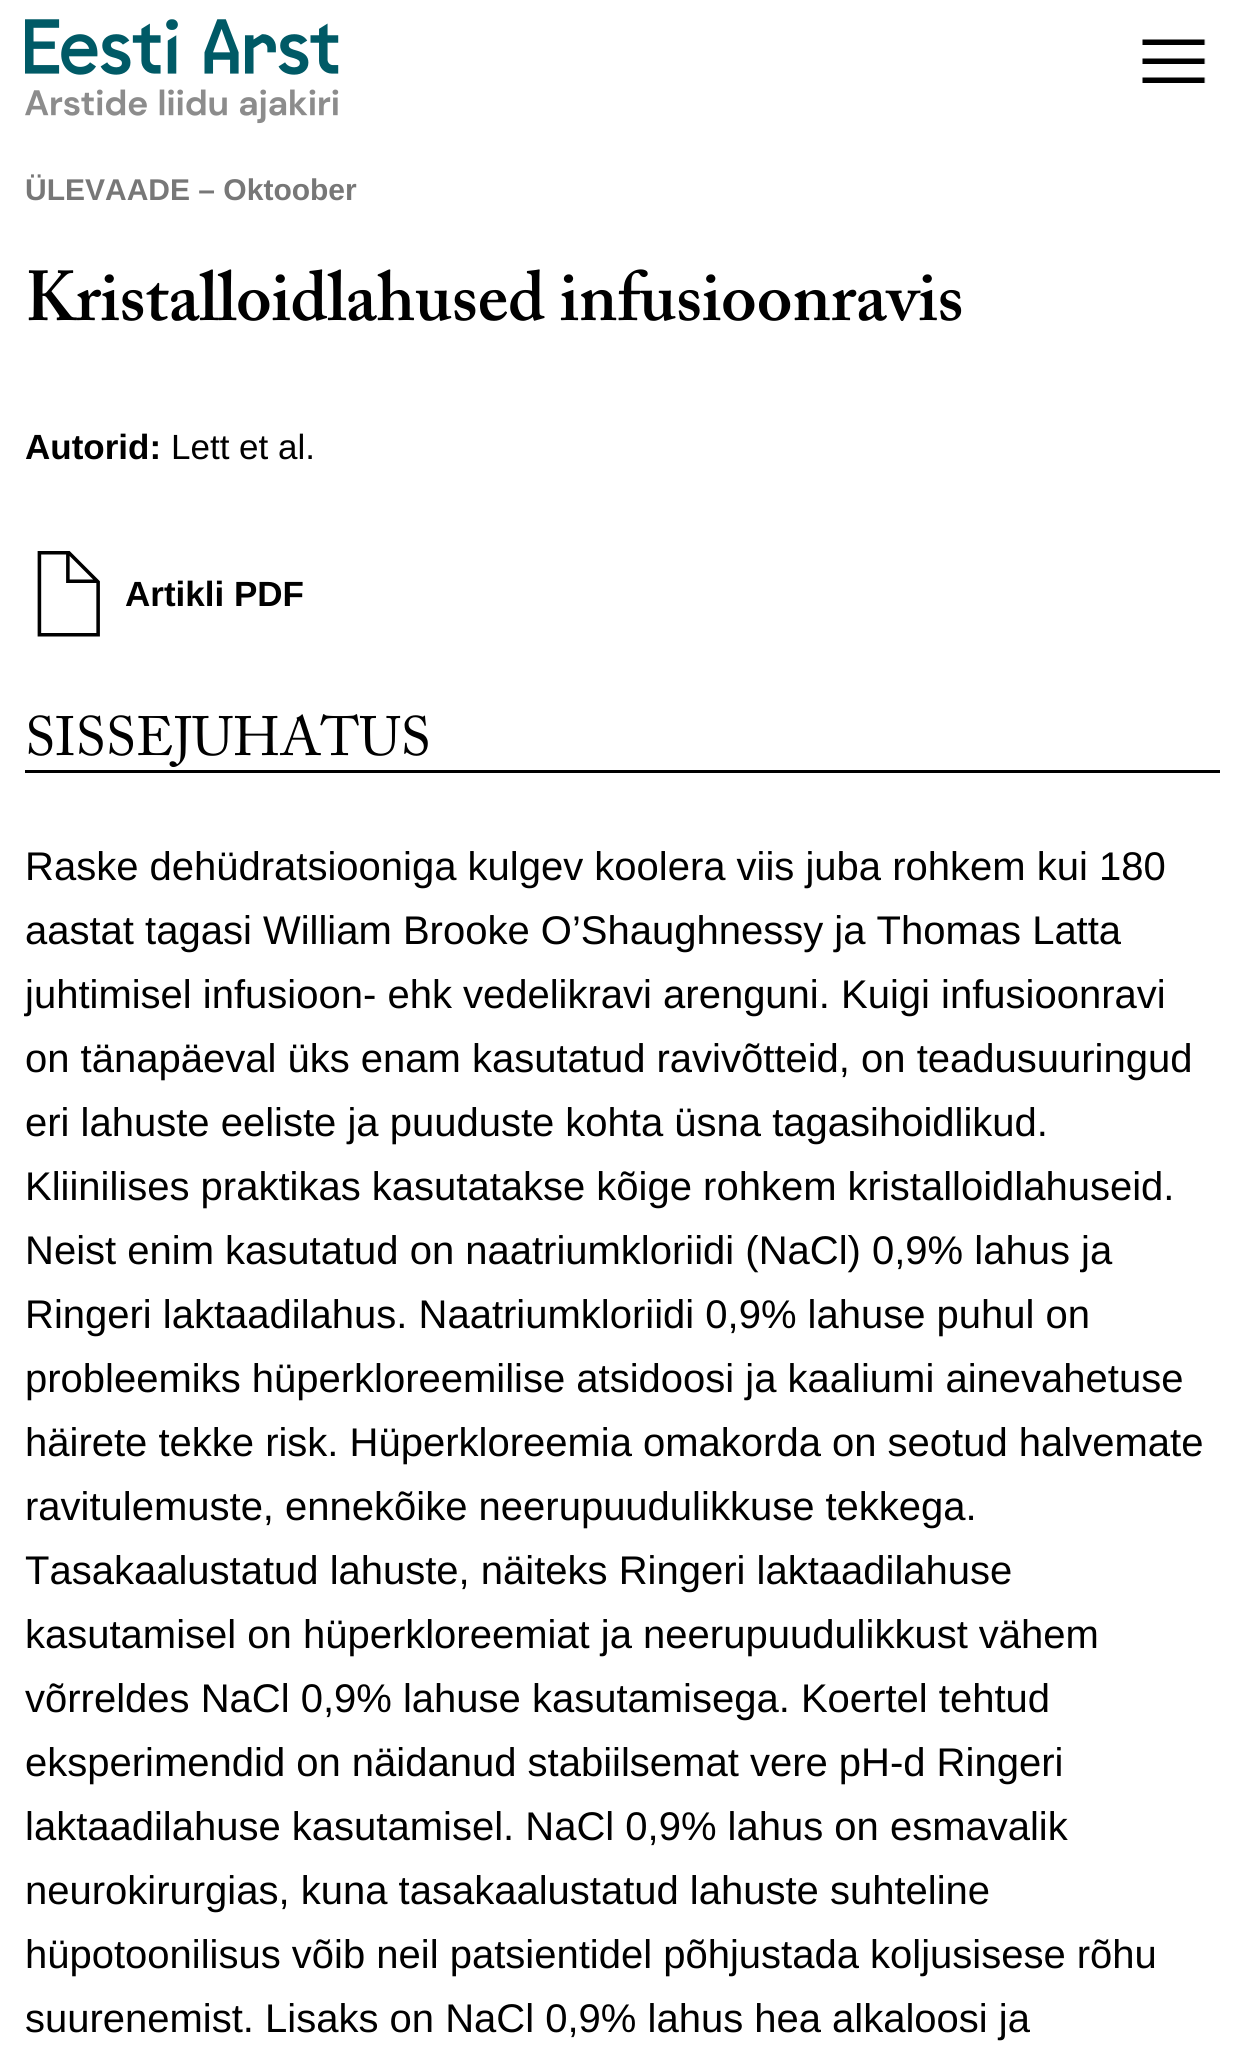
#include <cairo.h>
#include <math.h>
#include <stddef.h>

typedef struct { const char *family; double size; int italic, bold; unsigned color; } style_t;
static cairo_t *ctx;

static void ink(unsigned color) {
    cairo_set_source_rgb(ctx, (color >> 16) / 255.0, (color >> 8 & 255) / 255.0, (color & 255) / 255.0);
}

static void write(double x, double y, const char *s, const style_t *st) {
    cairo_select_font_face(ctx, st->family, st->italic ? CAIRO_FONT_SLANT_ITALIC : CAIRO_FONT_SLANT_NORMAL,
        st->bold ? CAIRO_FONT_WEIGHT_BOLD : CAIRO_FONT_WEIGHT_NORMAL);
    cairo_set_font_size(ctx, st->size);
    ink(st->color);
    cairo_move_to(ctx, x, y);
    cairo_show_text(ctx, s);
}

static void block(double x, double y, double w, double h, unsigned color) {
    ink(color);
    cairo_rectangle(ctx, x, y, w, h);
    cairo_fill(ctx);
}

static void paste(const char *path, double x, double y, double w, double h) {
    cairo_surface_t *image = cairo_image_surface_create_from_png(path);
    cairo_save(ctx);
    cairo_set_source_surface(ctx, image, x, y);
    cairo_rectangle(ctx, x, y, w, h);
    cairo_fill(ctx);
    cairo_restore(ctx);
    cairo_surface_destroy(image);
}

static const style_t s1 = {"Liberation Sans", 30, 0, 1, 0x777777};
static const style_t s2 = {"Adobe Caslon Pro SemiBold", 70, 0, 0, 0x000000};
static const style_t s3 = {"Liberation Sans", 35, 0, 1, 0x000000};
static const style_t s4 = {"Liberation Sans", 35, 0, 0, 0x000000};
static const style_t s5 = {"Adobe Caslon Pro", 55, 0, 0, 0x000000};
static const style_t s6 = {"Liberation Sans", 40, 0, 0, 0x000000};

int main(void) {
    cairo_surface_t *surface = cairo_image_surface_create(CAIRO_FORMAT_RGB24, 1243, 2049);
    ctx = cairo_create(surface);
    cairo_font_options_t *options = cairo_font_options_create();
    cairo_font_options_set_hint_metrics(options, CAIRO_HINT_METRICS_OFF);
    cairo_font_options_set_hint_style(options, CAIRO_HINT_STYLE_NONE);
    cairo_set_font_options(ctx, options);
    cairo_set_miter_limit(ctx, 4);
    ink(0xffffff);
    cairo_paint(ctx);
    paste("pic1.png", 25, 19, 314, 105);
    paste("pic2.png", 1142, 39, 64, 44);
    write(25, 200, "ÜLEVAADE – Oktoober", &s1);
    write(25, 320, "Kristalloidlahused infusioonravis", &s2);
    write(25, 459, "Autorid:", &s3);
    write(171, 459, "Lett et al.", &s4);
    paste("pic3.png", 37, 551, 63, 86);
    write(125, 606, "Artikli PDF", &s3);
    block(25, 770, 1195, 3, 0x000000);
    write(25, 755, "SISSEJUHATUS", &s5);
    write(25, 880, "Raske dehüdratsiooniga kulgev koolera viis juba rohkem kui 180", &s6);
    write(25, 944, "aastat tagasi William Brooke O’Shaughnessy ja Thomas Latta", &s6);
    write(25, 1008, "juhtimisel infusioon- ehk vedelikravi arenguni. Kuigi infusioonravi", &s6);
    write(25, 1072, "on tänapäeval üks enam kasutatud ravivõtteid, on teadusuuringud", &s6);
    write(25, 1136, "eri lahuste eeliste ja puuduste kohta üsna tagasihoidlikud.", &s6);
    write(25, 1200, "Kliinilises praktikas kasutatakse kõige rohkem kristalloidlahuseid.", &s6);
    write(25, 1264, "Neist enim kasutatud on naatriumkloriidi (NaCl) 0,9% lahus ja", &s6);
    write(25, 1328, "Ringeri laktaadilahus. Naatriumkloriidi 0,9% lahuse puhul on", &s6);
    write(25, 1392, "probleemiks hüperkloreemilise atsidoosi ja kaaliumi ainevahetuse", &s6);
    write(25, 1456, "häirete tekke risk. Hüperkloreemia omakorda on seotud halvemate", &s6);
    write(25, 1520, "ravitulemuste, ennekõike neerupuudulikkuse tekkega.", &s6);
    write(25, 1584, "Tasakaalustatud lahuste, näiteks Ringeri laktaadilahuse", &s6);
    write(25, 1648, "kasutamisel on hüperkloreemiat ja neerupuudulikkust vähem", &s6);
    write(25, 1712, "võrreldes NaCl 0,9% lahuse kasutamisega. Koertel tehtud", &s6);
    write(25, 1776, "eksperimendid on näidanud stabiilsemat vere pH-d Ringeri", &s6);
    write(25, 1840, "laktaadilahuse kasutamisel. NaCl 0,9% lahus on esmavalik", &s6);
    write(25, 1904, "neurokirurgias, kuna tasakaalustatud lahuste suhteline", &s6);
    write(25, 1968, "hüpotoonilisus võib neil patsientidel põhjustada koljusisese rõhu", &s6);
    write(25, 2032, "suurenemist. Lisaks on NaCl 0,9% lahus hea alkaloosi ja", &s6);
    cairo_surface_write_to_png(surface, "screenshot.png");
    cairo_font_options_destroy(options);
    cairo_destroy(ctx);
    cairo_surface_destroy(surface);
    return 0;
}
